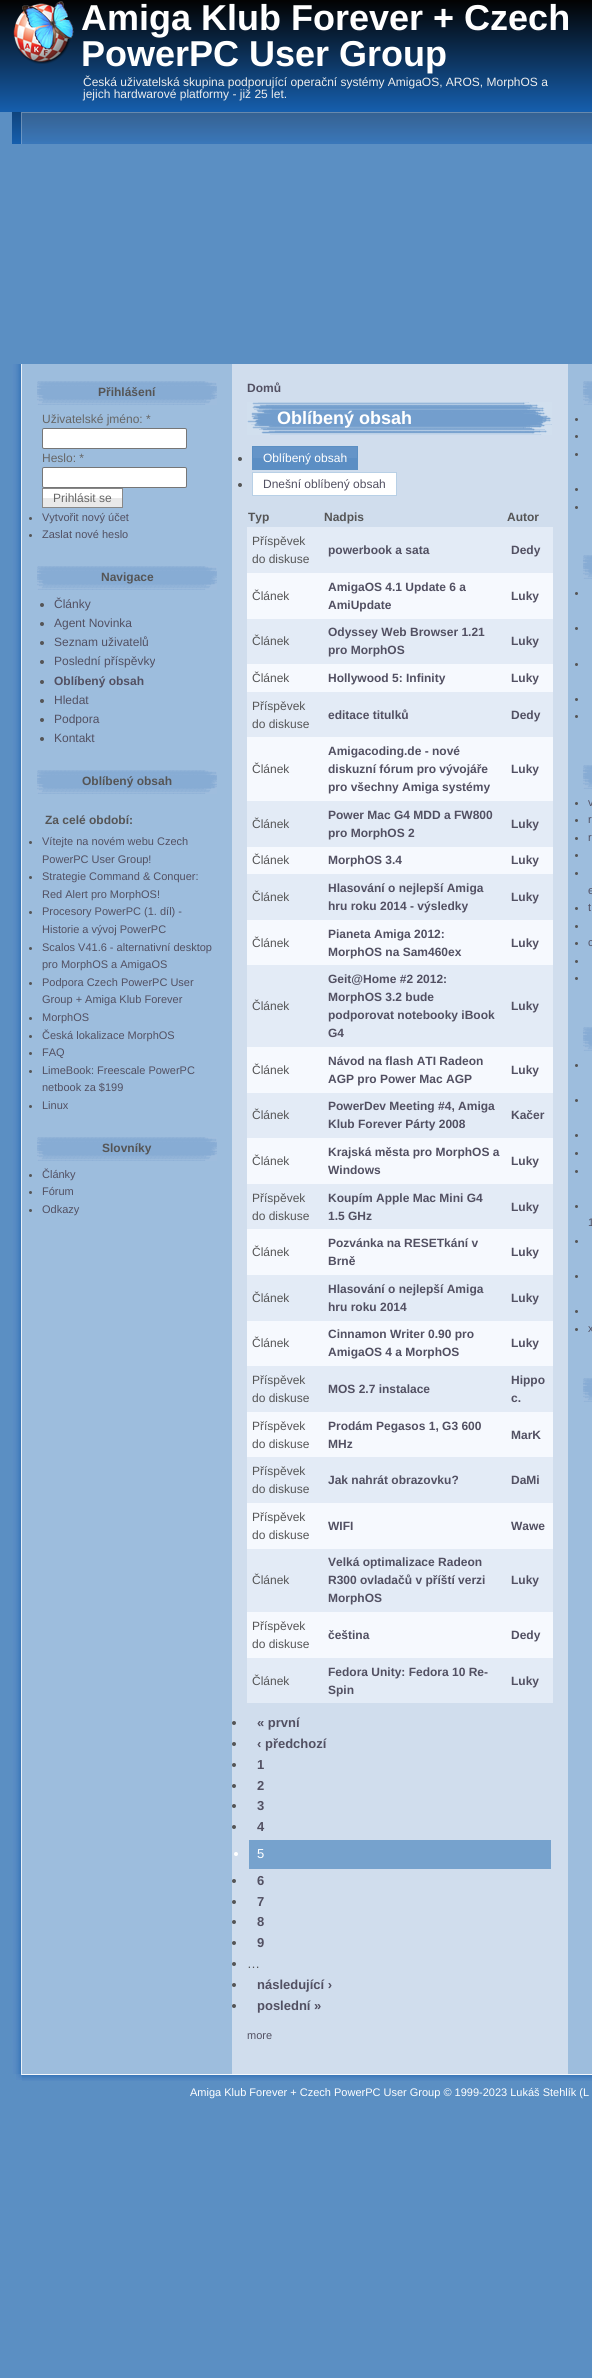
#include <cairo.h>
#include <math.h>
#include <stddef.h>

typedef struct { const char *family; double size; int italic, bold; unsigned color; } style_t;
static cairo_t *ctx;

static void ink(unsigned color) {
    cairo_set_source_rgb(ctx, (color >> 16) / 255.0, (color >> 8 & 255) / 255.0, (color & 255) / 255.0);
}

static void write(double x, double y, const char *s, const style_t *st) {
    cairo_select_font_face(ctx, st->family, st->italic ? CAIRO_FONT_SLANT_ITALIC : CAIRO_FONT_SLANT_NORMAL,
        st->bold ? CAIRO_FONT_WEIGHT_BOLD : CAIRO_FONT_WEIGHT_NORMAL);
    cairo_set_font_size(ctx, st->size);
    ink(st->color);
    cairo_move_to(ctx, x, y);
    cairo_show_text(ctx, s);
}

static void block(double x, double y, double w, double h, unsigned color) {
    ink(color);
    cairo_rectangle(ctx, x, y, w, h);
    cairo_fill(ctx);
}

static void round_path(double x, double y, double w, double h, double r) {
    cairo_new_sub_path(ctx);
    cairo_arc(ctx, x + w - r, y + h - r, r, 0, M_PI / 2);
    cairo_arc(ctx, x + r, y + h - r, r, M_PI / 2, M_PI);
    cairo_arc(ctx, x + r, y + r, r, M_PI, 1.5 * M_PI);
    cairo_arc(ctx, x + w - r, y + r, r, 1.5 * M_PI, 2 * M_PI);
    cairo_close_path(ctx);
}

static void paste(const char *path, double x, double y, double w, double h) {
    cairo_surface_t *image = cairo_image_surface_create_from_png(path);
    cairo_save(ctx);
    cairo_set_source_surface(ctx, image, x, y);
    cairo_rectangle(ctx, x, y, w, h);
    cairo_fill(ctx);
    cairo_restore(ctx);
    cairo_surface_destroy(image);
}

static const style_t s1 = {"Liberation Sans", 36, 0, 1, 0xffffff};
static const style_t s2 = {"Liberation Sans", 12, 0, 0, 0xeeeeee};
static const style_t s3 = {"Liberation Sans", 12, 0, 1, 0x555556};
static const style_t s4 = {"Liberation Sans", 12, 0, 0, 0x666666};
static const style_t s5 = {"Liberation Sans", 11, 0, 0, 0x525062};
static const style_t s6 = {"Liberation Sans", 12, 0, 0, 0x525062};
static const style_t s7 = {"Liberation Sans", 12, 0, 1, 0x525062};
static const style_t s8 = {"Liberation Sans", 18, 0, 1, 0xffffff};
static const style_t s9 = {"Liberation Sans", 12, 0, 0, 0xffffff};
static const style_t s10 = {"Liberation Sans", 12, 0, 0, 0x555556};
static const style_t s11 = {"Liberation Sans", 13, 0, 1, 0x525062};
static const style_t s12 = {"Liberation Sans", 13, 0, 0, 0xffffff};
static const style_t s13 = {"Liberation Sans", 13, 0, 0, 0x555556};
static const style_t s14 = {"Liberation Sans", 11, 0, 0, 0xffffff};

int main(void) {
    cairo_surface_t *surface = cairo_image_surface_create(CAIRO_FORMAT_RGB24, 592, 2378);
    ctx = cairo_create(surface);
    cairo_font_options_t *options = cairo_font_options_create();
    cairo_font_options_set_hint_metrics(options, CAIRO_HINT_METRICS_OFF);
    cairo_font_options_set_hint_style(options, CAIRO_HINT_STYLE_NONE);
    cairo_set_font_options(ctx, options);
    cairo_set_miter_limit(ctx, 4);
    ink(0x5b8fc3);
    cairo_paint(ctx);
    paste("pic1.png", 0, 0, 592, 112);
    paste("pic2.png", 13, 1, 61, 63);
    write(81, 30, "Amiga Klub Forever + Czech", &s1);
    write(81, 66, "PowerPC User Group", &s1);
    write(83, 86, "Česká uživatelská skupina podporující operační systémy AmigaOS, AROS, MorphOS a", &s2);
    write(83, 98, "jejich hardwarové platformy - již 25 let.", &s2);
    paste("pic3.png", 22, 112, 570, 32);
    paste("pic4.png", 12, 112, 10, 32);
    block(232, 364, 336, 1710, 0xd0dded);
    paste("pic5.png", 12, 364, 10, 1710);
    block(22, 364, 210, 1710, 0x9dbddd);
    paste("pic6.png", 37, 381, 180, 24);
    write(98, 396, "Přihlášení", &s3);
    write(42, 423, "Uživatelské jméno: *", &s4);
    ink(0xffffff);
    round_path(42.5, 428.5, 144, 20, 1.5);
    cairo_fill_preserve(ctx);
    ink(0x767676);
    cairo_set_line_width(ctx, 1);
    cairo_stroke(ctx);
    write(42, 462, "Heslo: *", &s4);
    ink(0xffffff);
    round_path(42.5, 467.5, 144, 20, 1.5);
    cairo_fill_preserve(ctx);
    ink(0x767676);
    cairo_stroke(ctx);
    block(43, 489, 79, 9, 0xffffff);
    block(43, 498, 79, 9, 0xe9e9e9);
    cairo_rectangle(ctx, 42.5, 488.5, 80, 19);
    ink(0x888888);
    cairo_stroke(ctx);
    write(53, 502, "Prihlásit se", &s4);
    ink(0x555556);
    cairo_new_path(ctx);
    cairo_arc(ctx, 30.5, 518.5, 1.5, 0, 2 * M_PI);
    cairo_fill(ctx);
    write(42, 521, "Vytvořit nový účet", &s5);
    ink(0x555556);
    cairo_new_path(ctx);
    cairo_arc(ctx, 30.5, 535.5, 1.5, 0, 2 * M_PI);
    cairo_fill(ctx);
    write(42, 538, "Zaslat nové heslo", &s5);
    paste("pic6.png", 37, 566, 180, 24);
    write(101, 581, "Navigace", &s3);
    cairo_new_path(ctx);
    cairo_arc(ctx, 42, 605, 2, 0, 2 * M_PI);
    cairo_fill(ctx);
    write(54, 608, "Články", &s6);
    ink(0x555556);
    cairo_new_path(ctx);
    cairo_arc(ctx, 42, 624, 2, 0, 2 * M_PI);
    cairo_fill(ctx);
    write(54, 627, "Agent Novinka", &s6);
    ink(0x555556);
    cairo_new_path(ctx);
    cairo_arc(ctx, 42, 643, 2, 0, 2 * M_PI);
    cairo_fill(ctx);
    write(54, 646, "Seznam uživatelů", &s6);
    ink(0x555556);
    cairo_new_path(ctx);
    cairo_arc(ctx, 42, 662, 2, 0, 2 * M_PI);
    cairo_fill(ctx);
    write(54, 665, "Poslední příspěvky", &s6);
    ink(0x555556);
    cairo_new_path(ctx);
    cairo_arc(ctx, 42, 682, 2, 0, 2 * M_PI);
    cairo_fill(ctx);
    write(54, 685, "Oblíbený obsah", &s7);
    ink(0x555556);
    cairo_new_path(ctx);
    cairo_arc(ctx, 42, 701, 2, 0, 2 * M_PI);
    cairo_fill(ctx);
    write(54, 704, "Hledat", &s6);
    ink(0x555556);
    cairo_new_path(ctx);
    cairo_arc(ctx, 42, 720, 2, 0, 2 * M_PI);
    cairo_fill(ctx);
    write(54, 723, "Podpora", &s6);
    ink(0x555556);
    cairo_new_path(ctx);
    cairo_arc(ctx, 42, 739, 2, 0, 2 * M_PI);
    cairo_fill(ctx);
    write(54, 742, "Kontakt", &s6);
    paste("pic6.png", 37, 770, 180, 24);
    write(82, 785, "Oblíbený obsah", &s3);
    write(45, 824, "Za celé období:", &s3);
    cairo_new_path(ctx);
    cairo_arc(ctx, 30.5, 842.5, 1.5, 0, 2 * M_PI);
    cairo_fill(ctx);
    write(42, 845, "Vítejte na novém webu Czech", &s5);
    write(42, 863, "PowerPC User Group!", &s5);
    ink(0x555556);
    cairo_new_path(ctx);
    cairo_arc(ctx, 30.5, 877.5, 1.5, 0, 2 * M_PI);
    cairo_fill(ctx);
    write(42, 880, "Strategie Command & Conquer:", &s5);
    write(42, 898, "Red Alert pro MorphOS!", &s5);
    ink(0x555556);
    cairo_new_path(ctx);
    cairo_arc(ctx, 30.5, 912.5, 1.5, 0, 2 * M_PI);
    cairo_fill(ctx);
    write(42, 915, "Procesory PowerPC (1. díl) -", &s5);
    write(42, 933, "Historie a vývoj PowerPC", &s5);
    ink(0x555556);
    cairo_new_path(ctx);
    cairo_arc(ctx, 30.5, 948.5, 1.5, 0, 2 * M_PI);
    cairo_fill(ctx);
    write(42, 951, "Scalos V41.6 - alternativní desktop", &s5);
    write(42, 968, "pro MorphOS a AmigaOS", &s5);
    ink(0x555556);
    cairo_new_path(ctx);
    cairo_arc(ctx, 30.5, 983.5, 1.5, 0, 2 * M_PI);
    cairo_fill(ctx);
    write(42, 986, "Podpora Czech PowerPC User", &s5);
    write(42, 1003, "Group + Amiga Klub Forever", &s5);
    ink(0x555556);
    cairo_new_path(ctx);
    cairo_arc(ctx, 30.5, 1018.5, 1.5, 0, 2 * M_PI);
    cairo_fill(ctx);
    write(42, 1021, "MorphOS", &s5);
    ink(0x555556);
    cairo_new_path(ctx);
    cairo_arc(ctx, 30.5, 1036.5, 1.5, 0, 2 * M_PI);
    cairo_fill(ctx);
    write(42, 1039, "Česká lokalizace MorphOS", &s5);
    ink(0x555556);
    cairo_new_path(ctx);
    cairo_arc(ctx, 30.5, 1053.5, 1.5, 0, 2 * M_PI);
    cairo_fill(ctx);
    write(42, 1056, "FAQ", &s5);
    ink(0x555556);
    cairo_new_path(ctx);
    cairo_arc(ctx, 30.5, 1071.5, 1.5, 0, 2 * M_PI);
    cairo_fill(ctx);
    write(42, 1074, "LimeBook: Freescale PowerPC", &s5);
    write(42, 1091, "netbook za $199", &s5);
    ink(0x555556);
    cairo_new_path(ctx);
    cairo_arc(ctx, 30.5, 1106.5, 1.5, 0, 2 * M_PI);
    cairo_fill(ctx);
    write(42, 1109, "Linux", &s5);
    paste("pic6.png", 37, 1137, 180, 24);
    write(102, 1152, "Slovníky", &s3);
    cairo_new_path(ctx);
    cairo_arc(ctx, 30.5, 1175.5, 1.5, 0, 2 * M_PI);
    cairo_fill(ctx);
    write(42, 1178, "Články", &s5);
    ink(0x555556);
    cairo_new_path(ctx);
    cairo_arc(ctx, 30.5, 1192.5, 1.5, 0, 2 * M_PI);
    cairo_fill(ctx);
    write(42, 1195, "Fórum", &s5);
    ink(0x555556);
    cairo_new_path(ctx);
    cairo_arc(ctx, 30.5, 1210.5, 1.5, 0, 2 * M_PI);
    cairo_fill(ctx);
    write(42, 1213, "Odkazy", &s5);
    write(247, 392, "Domů", &s7);
    paste("pic7.png", 247, 402, 30, 33);
    paste("pic8.png", 277, 402, 246, 33);
    write(277, 424, "Oblíbený obsah", &s8);
    paste("pic9.png", 523, 402, 29, 33);
    paste("pic10.png", 253, 447, 104, 22);
    ink(0x555556);
    cairo_arc(ctx, 240, 459, 2, 0, 2 * M_PI);
    cairo_fill(ctx);
    cairo_rectangle(ctx, 252.5, 446.5, 105, 23);
    ink(0x5b8fc3);
    cairo_stroke(ctx);
    write(263, 462, "Oblíbený obsah", &s9);
    ink(0x555556);
    cairo_new_path(ctx);
    cairo_arc(ctx, 240, 485, 2, 0, 2 * M_PI);
    cairo_fill(ctx);
    ink(0xffffff);
    cairo_rectangle(ctx, 252.5, 472.5, 144, 23);
    cairo_fill_preserve(ctx);
    ink(0xb8d0e6);
    cairo_stroke(ctx);
    write(263, 488, "Dnešní oblíbený obsah", &s6);
    write(248, 521, "Typ", &s3);
    write(324, 521, "Nadpis", &s3);
    write(507, 521, "Autor", &s3);
    block(247, 527, 306, 46, 0xe3ebf6);
    write(252, 545, "Příspěvek", &s10);
    write(252, 563, "do diskuse", &s10);
    write(328, 554, "powerbook a sata", &s7);
    write(511, 554, "Dedy", &s7);
    block(247, 573, 306, 46, 0xf6f9fe);
    write(252, 600, "Článek", &s10);
    write(328, 591, "AmigaOS 4.1 Update 6 a", &s7);
    write(328, 609, "AmiUpdate", &s7);
    write(511, 600, "Luky", &s7);
    block(247, 619, 306, 45, 0xe3ebf6);
    write(252, 645, "Článek", &s10);
    write(328, 636, "Odyssey Web Browser 1.21", &s7);
    write(328, 654, "pro MorphOS", &s7);
    write(511, 645, "Luky", &s7);
    block(247, 664, 306, 28, 0xf6f9fe);
    write(252, 682, "Článek", &s10);
    write(328, 682, "Hollywood 5: Infinity", &s7);
    write(511, 682, "Luky", &s7);
    block(247, 692, 306, 45, 0xe3ebf6);
    write(252, 710, "Příspěvek", &s10);
    write(252, 728, "do diskuse", &s10);
    write(328, 719, "editace titulků", &s7);
    write(511, 719, "Dedy", &s7);
    block(247, 737, 306, 64, 0xf6f9fe);
    write(252, 773, "Článek", &s10);
    write(328, 755, "Amigacoding.de - nové", &s7);
    write(328, 773, "diskuzní fórum pro vývojáře", &s7);
    write(328, 791, "pro všechny Amiga systémy", &s7);
    write(511, 773, "Luky", &s7);
    block(247, 801, 306, 46, 0xe3ebf6);
    write(252, 828, "Článek", &s10);
    write(328, 819, "Power Mac G4 MDD a FW800", &s7);
    write(328, 837, "pro MorphOS 2", &s7);
    write(511, 828, "Luky", &s7);
    block(247, 847, 306, 27, 0xf6f9fe);
    write(252, 864, "Článek", &s10);
    write(328, 864, "MorphOS 3.4", &s7);
    write(511, 864, "Luky", &s7);
    block(247, 874, 306, 46, 0xe3ebf6);
    write(252, 901, "Článek", &s10);
    write(328, 892, "Hlasování o nejlepší Amiga", &s7);
    write(328, 910, "hru roku 2014 - výsledky", &s7);
    write(511, 901, "Luky", &s7);
    block(247, 920, 306, 45, 0xf6f9fe);
    write(252, 947, "Článek", &s10);
    write(328, 938, "Pianeta Amiga 2012:", &s7);
    write(328, 956, "MorphOS na Sam460ex", &s7);
    write(511, 947, "Luky", &s7);
    block(247, 965, 306, 82, 0xe3ebf6);
    write(252, 1010, "Článek", &s10);
    write(328, 983, "Geit@Home #2 2012:", &s7);
    write(328, 1001, "MorphOS 3.2 bude", &s7);
    write(328, 1019, "podporovat notebooky iBook", &s7);
    write(328, 1037, "G4", &s7);
    write(511, 1010, "Luky", &s7);
    block(247, 1047, 306, 46, 0xf6f9fe);
    write(252, 1074, "Článek", &s10);
    write(328, 1065, "Návod na flash ATI Radeon", &s7);
    write(328, 1083, "AGP pro Power Mac AGP", &s7);
    write(511, 1074, "Luky", &s7);
    block(247, 1093, 306, 45, 0xe3ebf6);
    write(252, 1119, "Článek", &s10);
    write(328, 1110, "PowerDev Meeting #4, Amiga", &s7);
    write(328, 1128, "Klub Forever Párty 2008", &s7);
    write(511, 1119, "Kačer", &s7);
    block(247, 1138, 306, 46, 0xf6f9fe);
    write(252, 1165, "Článek", &s10);
    write(328, 1156, "Krajská města pro MorphOS a", &s7);
    write(328, 1174, "Windows", &s7);
    write(511, 1165, "Luky", &s7);
    block(247, 1184, 306, 45, 0xe3ebf6);
    write(252, 1202, "Příspěvek", &s10);
    write(252, 1220, "do diskuse", &s10);
    write(328, 1202, "Koupím Apple Mac Mini G4", &s7);
    write(328, 1220, "1.5 GHz", &s7);
    write(511, 1211, "Luky", &s7);
    block(247, 1229, 306, 46, 0xf6f9fe);
    write(252, 1256, "Článek", &s10);
    write(328, 1247, "Pozvánka na RESETkání v", &s7);
    write(328, 1265, "Brně", &s7);
    write(511, 1256, "Luky", &s7);
    block(247, 1275, 306, 46, 0xe3ebf6);
    write(252, 1302, "Článek", &s10);
    write(328, 1293, "Hlasování o nejlepší Amiga", &s7);
    write(328, 1311, "hru roku 2014", &s7);
    write(511, 1302, "Luky", &s7);
    block(247, 1321, 306, 45, 0xf6f9fe);
    write(252, 1347, "Článek", &s10);
    write(328, 1338, "Cinnamon Writer 0.90 pro", &s7);
    write(328, 1356, "AmigaOS 4 a MorphOS", &s7);
    write(511, 1347, "Luky", &s7);
    block(247, 1366, 306, 46, 0xe3ebf6);
    write(252, 1384, "Příspěvek", &s10);
    write(252, 1402, "do diskuse", &s10);
    write(328, 1393, "MOS 2.7 instalace", &s7);
    write(511, 1384, "Hippo", &s7);
    write(511, 1402, "c.", &s7);
    block(247, 1412, 306, 45, 0xf6f9fe);
    write(252, 1430, "Příspěvek", &s10);
    write(252, 1448, "do diskuse", &s10);
    write(328, 1430, "Prodám Pegasos 1, G3 600", &s7);
    write(328, 1448, "MHz", &s7);
    write(511, 1439, "MarK", &s7);
    block(247, 1457, 306, 46, 0xe3ebf6);
    write(252, 1475, "Příspěvek", &s10);
    write(252, 1493, "do diskuse", &s10);
    write(328, 1484, "Jak nahrát obrazovku?", &s7);
    write(511, 1484, "DaMi", &s7);
    block(247, 1503, 306, 46, 0xf6f9fe);
    write(252, 1521, "Příspěvek", &s10);
    write(252, 1539, "do diskuse", &s10);
    write(328, 1530, "WIFI", &s7);
    write(511, 1530, "Wawe", &s7);
    block(247, 1549, 306, 63, 0xe3ebf6);
    write(252, 1584, "Článek", &s10);
    write(328, 1566, "Velká optimalizace Radeon", &s7);
    write(328, 1584, "R300 ovladačů v příští verzi", &s7);
    write(328, 1602, "MorphOS", &s7);
    write(511, 1584, "Luky", &s7);
    block(247, 1612, 306, 46, 0xf6f9fe);
    write(252, 1630, "Příspěvek", &s10);
    write(252, 1648, "do diskuse", &s10);
    write(328, 1639, "čeština", &s7);
    write(511, 1639, "Dedy", &s7);
    block(247, 1658, 306, 45, 0xe3ebf6);
    write(252, 1685, "Článek", &s10);
    write(328, 1676, "Fedora Unity: Fedora 10 Re-", &s7);
    write(328, 1694, "Spin", &s7);
    write(511, 1685, "Luky", &s7);
    ink(0x555556);
    cairo_new_path(ctx);
    cairo_arc(ctx, 234, 1723, 2, 0, 2 * M_PI);
    cairo_fill(ctx);
    write(257, 1727, "« první", &s11);
    ink(0x555556);
    cairo_new_path(ctx);
    cairo_arc(ctx, 234, 1744, 2, 0, 2 * M_PI);
    cairo_fill(ctx);
    write(257, 1748, "‹ předchozí", &s11);
    ink(0x555556);
    cairo_new_path(ctx);
    cairo_arc(ctx, 234, 1765, 2, 0, 2 * M_PI);
    cairo_fill(ctx);
    write(257, 1769, "1", &s11);
    ink(0x555556);
    cairo_new_path(ctx);
    cairo_arc(ctx, 234, 1786, 2, 0, 2 * M_PI);
    cairo_fill(ctx);
    write(257, 1790, "2", &s11);
    ink(0x555556);
    cairo_new_path(ctx);
    cairo_arc(ctx, 234, 1806, 2, 0, 2 * M_PI);
    cairo_fill(ctx);
    write(257, 1810, "3", &s11);
    ink(0x555556);
    cairo_new_path(ctx);
    cairo_arc(ctx, 234, 1827, 2, 0, 2 * M_PI);
    cairo_fill(ctx);
    write(257, 1831, "4", &s11);
    block(249, 1840, 302, 29, 0x76a2cd);
    ink(0xffffff);
    cairo_new_path(ctx);
    cairo_arc(ctx, 236, 1854, 2, 0, 2 * M_PI);
    cairo_fill(ctx);
    write(257, 1858, "5", &s12);
    ink(0x555556);
    cairo_new_path(ctx);
    cairo_arc(ctx, 234, 1881, 2, 0, 2 * M_PI);
    cairo_fill(ctx);
    write(257, 1885, "6", &s11);
    ink(0x555556);
    cairo_new_path(ctx);
    cairo_arc(ctx, 234, 1902, 2, 0, 2 * M_PI);
    cairo_fill(ctx);
    write(257, 1906, "7", &s11);
    ink(0x555556);
    cairo_new_path(ctx);
    cairo_arc(ctx, 234, 1922, 2, 0, 2 * M_PI);
    cairo_fill(ctx);
    write(257, 1926, "8", &s11);
    ink(0x555556);
    cairo_new_path(ctx);
    cairo_arc(ctx, 234, 1943, 2, 0, 2 * M_PI);
    cairo_fill(ctx);
    write(257, 1947, "9", &s11);
    ink(0x555556);
    cairo_new_path(ctx);
    cairo_arc(ctx, 234, 1964, 2, 0, 2 * M_PI);
    cairo_fill(ctx);
    write(247, 1968, "…", &s13);
    cairo_new_path(ctx);
    cairo_arc(ctx, 234, 1985, 2, 0, 2 * M_PI);
    cairo_fill(ctx);
    write(257, 1989, "následující ›", &s11);
    ink(0x555556);
    cairo_new_path(ctx);
    cairo_arc(ctx, 234, 2006, 2, 0, 2 * M_PI);
    cairo_fill(ctx);
    write(257, 2010, "poslední »", &s11);
    write(247, 2039, "more", &s5);
    block(568, 364, 24, 1710, 0x9dbddd);
    paste("pic11.png", 583, 381, 9, 24);
    ink(0x555556);
    cairo_arc(ctx, 576.5, 419.5, 1.5, 0, 2 * M_PI);
    cairo_fill(ctx);
    cairo_arc(ctx, 576.5, 436.5, 1.5, 0, 2 * M_PI);
    cairo_fill(ctx);
    cairo_arc(ctx, 576.5, 454.5, 1.5, 0, 2 * M_PI);
    cairo_fill(ctx);
    cairo_arc(ctx, 576.5, 489.5, 1.5, 0, 2 * M_PI);
    cairo_fill(ctx);
    cairo_arc(ctx, 576.5, 507.5, 1.5, 0, 2 * M_PI);
    cairo_fill(ctx);
    paste("pic11.png", 583, 555, 9, 24);
    cairo_arc(ctx, 576.5, 593.5, 1.5, 0, 2 * M_PI);
    cairo_fill(ctx);
    cairo_arc(ctx, 576.5, 628.5, 1.5, 0, 2 * M_PI);
    cairo_fill(ctx);
    cairo_arc(ctx, 576.5, 664.5, 1.5, 0, 2 * M_PI);
    cairo_fill(ctx);
    cairo_arc(ctx, 576.5, 699.5, 1.5, 0, 2 * M_PI);
    cairo_fill(ctx);
    cairo_arc(ctx, 576.5, 716.5, 1.5, 0, 2 * M_PI);
    cairo_fill(ctx);
    paste("pic11.png", 583, 765, 9, 24);
    cairo_arc(ctx, 576.5, 803.5, 1.5, 0, 2 * M_PI);
    cairo_fill(ctx);
    write(588, 806, "v", &s5);
    ink(0x555556);
    cairo_new_path(ctx);
    cairo_arc(ctx, 576.5, 820.5, 1.5, 0, 2 * M_PI);
    cairo_fill(ctx);
    write(588, 823, "r", &s5);
    ink(0x555556);
    cairo_new_path(ctx);
    cairo_arc(ctx, 576.5, 838.5, 1.5, 0, 2 * M_PI);
    cairo_fill(ctx);
    write(588, 841, "r", &s5);
    ink(0x555556);
    cairo_new_path(ctx);
    cairo_arc(ctx, 576.5, 855.5, 1.5, 0, 2 * M_PI);
    cairo_fill(ctx);
    cairo_arc(ctx, 576.5, 873.5, 1.5, 0, 2 * M_PI);
    cairo_fill(ctx);
    write(588, 894, "e", &s5);
    ink(0x555556);
    cairo_new_path(ctx);
    cairo_arc(ctx, 576.5, 908.5, 1.5, 0, 2 * M_PI);
    cairo_fill(ctx);
    write(588, 911, "t", &s5);
    ink(0x555556);
    cairo_new_path(ctx);
    cairo_arc(ctx, 576.5, 926.5, 1.5, 0, 2 * M_PI);
    cairo_fill(ctx);
    cairo_arc(ctx, 576.5, 943.5, 1.5, 0, 2 * M_PI);
    cairo_fill(ctx);
    write(588, 946, "c", &s5);
    ink(0x555556);
    cairo_new_path(ctx);
    cairo_arc(ctx, 576.5, 961.5, 1.5, 0, 2 * M_PI);
    cairo_fill(ctx);
    cairo_arc(ctx, 576.5, 978.5, 1.5, 0, 2 * M_PI);
    cairo_fill(ctx);
    paste("pic11.png", 583, 1027, 9, 24);
    cairo_arc(ctx, 576.5, 1065.5, 1.5, 0, 2 * M_PI);
    cairo_fill(ctx);
    cairo_arc(ctx, 576.5, 1100.5, 1.5, 0, 2 * M_PI);
    cairo_fill(ctx);
    cairo_arc(ctx, 576.5, 1135.5, 1.5, 0, 2 * M_PI);
    cairo_fill(ctx);
    cairo_arc(ctx, 576.5, 1153.5, 1.5, 0, 2 * M_PI);
    cairo_fill(ctx);
    cairo_arc(ctx, 576.5, 1171.5, 1.5, 0, 2 * M_PI);
    cairo_fill(ctx);
    cairo_arc(ctx, 576.5, 1206.5, 1.5, 0, 2 * M_PI);
    cairo_fill(ctx);
    write(588, 1226, "1", &s5);
    ink(0x555556);
    cairo_new_path(ctx);
    cairo_arc(ctx, 576.5, 1241.5, 1.5, 0, 2 * M_PI);
    cairo_fill(ctx);
    cairo_arc(ctx, 576.5, 1276.5, 1.5, 0, 2 * M_PI);
    cairo_fill(ctx);
    cairo_arc(ctx, 576.5, 1311.5, 1.5, 0, 2 * M_PI);
    cairo_fill(ctx);
    cairo_arc(ctx, 576.5, 1329.5, 1.5, 0, 2 * M_PI);
    cairo_fill(ctx);
    write(588, 1332, "x", &s5);
    paste("pic11.png", 583, 1378, 9, 24);
    paste("pic12.png", 16, 2074, 6, 6);
    paste("pic13.png", 22, 2074, 570, 7);
    write(190, 2096, "Amiga Klub Forever + Czech PowerPC User Group © 1999-2023 Lukáš Stehlík (L", &s14);
    cairo_surface_write_to_png(surface, "screenshot.png");
    cairo_font_options_destroy(options);
    cairo_destroy(ctx);
    cairo_surface_destroy(surface);
    return 0;
}
